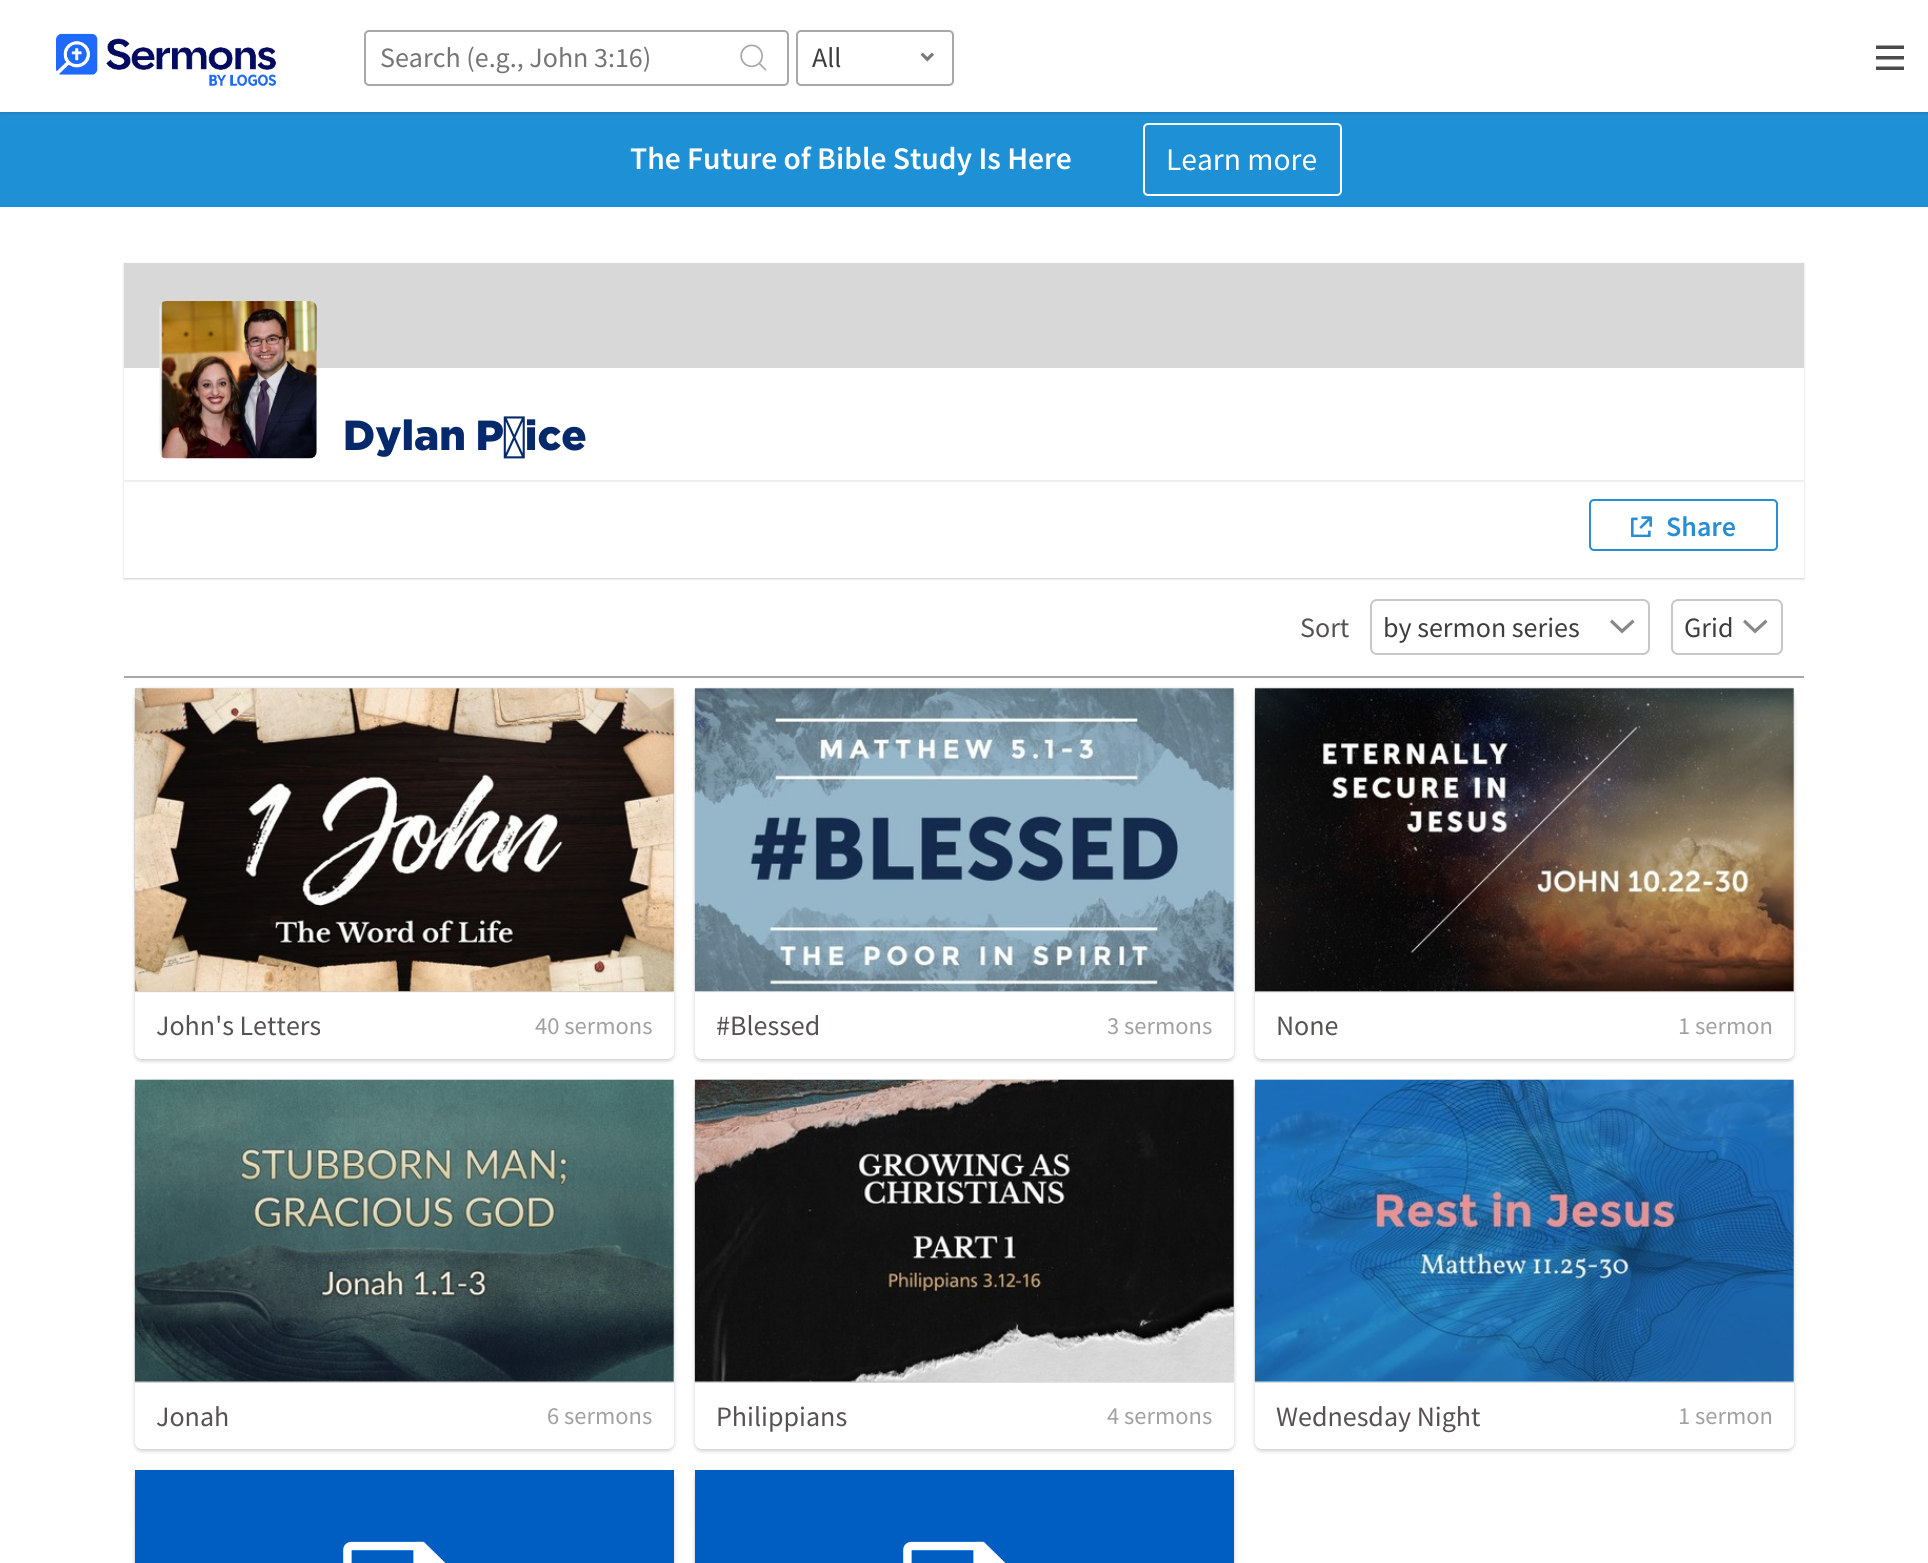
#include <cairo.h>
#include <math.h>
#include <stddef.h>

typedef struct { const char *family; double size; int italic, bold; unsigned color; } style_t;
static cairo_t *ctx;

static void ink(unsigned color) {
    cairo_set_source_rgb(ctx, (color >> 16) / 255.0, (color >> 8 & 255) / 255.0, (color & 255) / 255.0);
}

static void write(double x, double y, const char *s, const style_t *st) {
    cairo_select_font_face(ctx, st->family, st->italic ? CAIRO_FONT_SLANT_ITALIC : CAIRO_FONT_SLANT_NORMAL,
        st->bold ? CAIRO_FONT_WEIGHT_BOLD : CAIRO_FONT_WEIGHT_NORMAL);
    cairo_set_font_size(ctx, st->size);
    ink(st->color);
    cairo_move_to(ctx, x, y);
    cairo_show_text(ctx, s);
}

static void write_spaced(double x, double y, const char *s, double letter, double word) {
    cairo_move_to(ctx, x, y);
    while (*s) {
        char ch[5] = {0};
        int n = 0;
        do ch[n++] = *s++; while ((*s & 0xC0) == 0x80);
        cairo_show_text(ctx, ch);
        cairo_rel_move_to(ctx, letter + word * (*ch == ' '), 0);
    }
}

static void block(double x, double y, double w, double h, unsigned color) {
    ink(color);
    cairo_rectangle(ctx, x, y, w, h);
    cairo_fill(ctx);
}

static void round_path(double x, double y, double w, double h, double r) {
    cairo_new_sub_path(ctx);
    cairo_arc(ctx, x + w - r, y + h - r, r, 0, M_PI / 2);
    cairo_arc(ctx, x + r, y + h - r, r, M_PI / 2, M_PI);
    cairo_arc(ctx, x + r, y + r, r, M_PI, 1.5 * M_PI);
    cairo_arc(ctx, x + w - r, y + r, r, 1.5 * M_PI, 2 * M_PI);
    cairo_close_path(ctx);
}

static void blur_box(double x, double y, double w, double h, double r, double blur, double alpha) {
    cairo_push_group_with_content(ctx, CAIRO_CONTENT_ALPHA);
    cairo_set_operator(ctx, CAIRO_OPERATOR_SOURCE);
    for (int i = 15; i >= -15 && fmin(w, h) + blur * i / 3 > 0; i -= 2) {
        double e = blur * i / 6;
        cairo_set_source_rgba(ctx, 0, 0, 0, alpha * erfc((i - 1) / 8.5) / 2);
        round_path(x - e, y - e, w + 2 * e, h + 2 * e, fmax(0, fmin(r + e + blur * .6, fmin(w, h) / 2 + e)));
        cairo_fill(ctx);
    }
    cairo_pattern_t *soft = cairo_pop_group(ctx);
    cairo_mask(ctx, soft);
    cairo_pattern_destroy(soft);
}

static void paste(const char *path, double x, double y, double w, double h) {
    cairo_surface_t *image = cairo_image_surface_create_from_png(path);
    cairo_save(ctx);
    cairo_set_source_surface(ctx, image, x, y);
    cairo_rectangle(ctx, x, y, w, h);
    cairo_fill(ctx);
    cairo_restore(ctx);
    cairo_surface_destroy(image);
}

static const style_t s1 = {"Source Sans Pro", 28, 0, 0, 0x757575};
static const style_t s2 = {"Source Sans Pro", 28, 0, 0, 0x3d3d3d};
static const style_t s3 = {"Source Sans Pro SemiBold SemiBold", 31.5, 0, 0, 0xffffff};
static const style_t s4 = {"Source Sans Pro", 31.5, 0, 0, 0xffffff};
static const style_t s5 = {"Source Sans Pro SemiBold SemiBold", 28, 0, 0, 0x278ed4};
static const style_t s6 = {"Source Sans Pro", 28, 0, 0, 0x575251};
static const style_t s7 = {"Source Sans Pro", 24.5, 0, 0, 0xa1a1a1};

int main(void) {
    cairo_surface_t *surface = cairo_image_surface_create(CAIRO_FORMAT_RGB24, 1928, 1563);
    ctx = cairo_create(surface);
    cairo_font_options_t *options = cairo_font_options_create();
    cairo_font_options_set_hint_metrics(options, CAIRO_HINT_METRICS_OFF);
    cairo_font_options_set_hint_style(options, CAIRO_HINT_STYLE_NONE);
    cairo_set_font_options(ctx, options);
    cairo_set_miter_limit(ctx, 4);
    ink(0xffffff);
    cairo_paint(ctx);
    block(0, 112, 1928, 95, 0x1e91d6);
    cairo_save(ctx);
    cairo_rectangle(ctx, 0, 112, 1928, 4);
    cairo_clip(ctx);
    ink(0x000000);
    blur_box(0, 2, 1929, 112, 0, 2, 0.1);
    cairo_restore(ctx);
    round_path(1144, 124, 197, 71, 4);
    ink(0xffffff);
    cairo_stroke(ctx);
    cairo_save(ctx);
    cairo_set_fill_rule(ctx, CAIRO_FILL_RULE_EVEN_ODD);
    cairo_new_path(ctx);
    cairo_move_to(ctx, 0, 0);
    cairo_line_to(ctx, 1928, 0);
    cairo_line_to(ctx, 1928, 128);
    cairo_line_to(ctx, 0, 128);
    cairo_close_path(ctx);
    cairo_move_to(ctx, 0, 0);
    cairo_line_to(ctx, 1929, 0);
    cairo_line_to(ctx, 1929, 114);
    cairo_line_to(ctx, 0, 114);
    cairo_close_path(ctx);
    cairo_clip(ctx);
    ink(0x6e83b7);
    blur_box(2, 5, 1925, 111, 0, 3.5, 0.2);
    cairo_restore(ctx);
    paste("pic1.png", 56, 33, 220, 54);
    round_path(365, 31, 423, 54, 4);
    ink(0xa8a8a8);
    cairo_stroke(ctx);
    write(380, 67, "Search (e.g., John 3:16)", &s1);
    paste("pic2.png", 740, 44, 27, 27);
    round_path(797, 31, 156, 54, 4);
    ink(0xa8a8a8);
    cairo_stroke(ctx);
    write(812, 67, "All", &s2);
    paste("pic3.png", 920, 52, 14, 10);
    paste("pic4.png", 1876, 45, 28, 25);
    write(630, 169, "The Future of Bible Study Is Here", &s3);
    write(1166, 170, "Learn more", &s4);
    cairo_save(ctx);
    cairo_set_fill_rule(ctx, CAIRO_FILL_RULE_EVEN_ODD);
    cairo_new_path(ctx);
    cairo_move_to(ctx, 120, 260);
    cairo_line_to(ctx, 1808, 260);
    cairo_line_to(ctx, 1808, 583);
    cairo_line_to(ctx, 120, 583);
    cairo_close_path(ctx);
    cairo_move_to(ctx, 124, 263);
    cairo_line_to(ctx, 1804, 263);
    cairo_line_to(ctx, 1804, 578);
    cairo_line_to(ctx, 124, 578);
    cairo_close_path(ctx);
    cairo_clip(ctx);
    ink(0x000000);
    blur_box(124, 264, 1680, 315, 0, 1, 0.2);
    cairo_restore(ctx);
    block(124, 480, 1680, 2, 0xeeeeee);
    block(124, 263, 1680, 105, 0xd8d8d8);
    paste("pic5.png", 159, 301, 158, 158);
    cairo_select_font_face(ctx, "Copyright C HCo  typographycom", CAIRO_FONT_SLANT_NORMAL, CAIRO_FONT_WEIGHT_NORMAL);
    cairo_set_font_size(ctx, 42);
    ink(0x06296c);
    write_spaced(343, 450, "Dylan Price", 0, -2);
    round_path(1590, 500, 187, 50, 4);
    ink(0x278ed4);
    cairo_stroke(ctx);
    paste("pic6.png", 1631, 516, 21, 21);
    write(1666, 536, "Share", &s5);
    block(124, 676, 1680, 2, 0xa8a8a8);
    write(1300, 637, "Sort", &s6);
    round_path(1371, 600, 278, 54, 6);
    ink(0xc7c7c7);
    cairo_stroke(ctx);
    write(1383, 637, "by sermon series", &s2);
    ink(0x888888);
    cairo_new_path(ctx);
    cairo_move_to(ctx, 1622, 633.5);
    cairo_line_to(ctx, 1610, 622);
    cairo_line_to(ctx, 1612, 619.5);
    cairo_line_to(ctx, 1622, 629);
    cairo_line_to(ctx, 1632.5, 619.5);
    cairo_line_to(ctx, 1634.5, 622);
    cairo_close_path(ctx);
    cairo_fill(ctx);
    round_path(1672, 600, 110, 54, 6);
    ink(0xc7c7c7);
    cairo_stroke(ctx);
    write(1684, 637, "Grid", &s2);
    ink(0x888888);
    cairo_new_path(ctx);
    cairo_move_to(ctx, 1755, 633.5);
    cairo_line_to(ctx, 1743, 622);
    cairo_line_to(ctx, 1745, 619.5);
    cairo_line_to(ctx, 1755, 629);
    cairo_line_to(ctx, 1765.5, 619.5);
    cairo_line_to(ctx, 1767.5, 622);
    cairo_close_path(ctx);
    cairo_fill(ctx);
    ink(0x000000);
    blur_box(135, 690, 539, 371, 7, 2, 0.2);
    ink(0xffffff);
    cairo_new_path(ctx);
    cairo_move_to(ctx, 135, 688);
    cairo_line_to(ctx, 674, 688);
    cairo_line_to(ctx, 674, 1052);
    cairo_curve_to(ctx, 674, 1056, 671, 1059, 667, 1059);
    cairo_line_to(ctx, 142, 1059);
    cairo_curve_to(ctx, 138, 1059, 135, 1056, 135, 1052);
    cairo_close_path(ctx);
    cairo_fill(ctx);
    block(135, 688, 539, 304, 0xeeeeee);
    paste("pic7.png", 134, 687, 540, 306);
    paste("pic8.png", 134, 688, 540, 304);
    write(156, 1035, "John's Letters", &s6);
    write(535, 1034, "40 sermons", &s7);
    ink(0x000000);
    blur_box(695, 690, 539, 371, 7, 2, 0.2);
    ink(0xffffff);
    cairo_new_path(ctx);
    cairo_move_to(ctx, 695, 688);
    cairo_line_to(ctx, 1234, 688);
    cairo_line_to(ctx, 1234, 1052);
    cairo_curve_to(ctx, 1234, 1056, 1231, 1059, 1227, 1059);
    cairo_line_to(ctx, 702, 1059);
    cairo_curve_to(ctx, 698, 1059, 695, 1056, 695, 1052);
    cairo_close_path(ctx);
    cairo_fill(ctx);
    block(695, 688, 539, 304, 0xeeeeee);
    paste("pic9.png", 694, 687, 540, 306);
    paste("pic10.png", 694, 688, 540, 304);
    write(716, 1035, "#Blessed", &s6);
    write(1107, 1034, "3 sermons", &s7);
    ink(0x000000);
    blur_box(1255, 690, 539, 371, 7, 2, 0.2);
    ink(0xffffff);
    cairo_new_path(ctx);
    cairo_move_to(ctx, 1255, 688);
    cairo_line_to(ctx, 1794, 688);
    cairo_line_to(ctx, 1794, 1052);
    cairo_curve_to(ctx, 1794, 1056, 1791, 1059, 1787, 1059);
    cairo_line_to(ctx, 1262, 1059);
    cairo_curve_to(ctx, 1258, 1059, 1255, 1056, 1255, 1052);
    cairo_close_path(ctx);
    cairo_fill(ctx);
    block(1255, 688, 539, 304, 0xeeeeee);
    paste("pic11.png", 1254, 687, 540, 306);
    paste("pic12.png", 1254, 688, 540, 304);
    write(1276, 1035, "None", &s6);
    write(1678, 1034, "1 sermon", &s7);
    ink(0x000000);
    blur_box(135, 1082, 539, 369, 7, 2, 0.2);
    ink(0xffffff);
    cairo_new_path(ctx);
    cairo_move_to(ctx, 135, 1080);
    cairo_line_to(ctx, 674, 1080);
    cairo_line_to(ctx, 674, 1442);
    cairo_curve_to(ctx, 674, 1446, 671, 1449, 667, 1449);
    cairo_line_to(ctx, 142, 1449);
    cairo_curve_to(ctx, 138, 1449, 135, 1446, 135, 1442);
    cairo_close_path(ctx);
    cairo_fill(ctx);
    block(135, 1080, 539, 303, 0xeeeeee);
    paste("pic13.png", 134, 1079, 540, 304);
    paste("pic14.png", 134, 1079, 540, 303);
    write(156, 1426, "Jonah", &s6);
    write(547, 1424, "6 sermons", &s7);
    ink(0x000000);
    blur_box(695, 1082, 539, 369, 7, 2, 0.2);
    ink(0xffffff);
    cairo_new_path(ctx);
    cairo_move_to(ctx, 695, 1080);
    cairo_line_to(ctx, 1234, 1080);
    cairo_line_to(ctx, 1234, 1442);
    cairo_curve_to(ctx, 1234, 1446, 1231, 1449, 1227, 1449);
    cairo_line_to(ctx, 702, 1449);
    cairo_curve_to(ctx, 698, 1449, 695, 1446, 695, 1442);
    cairo_close_path(ctx);
    cairo_fill(ctx);
    block(695, 1080, 539, 303, 0xeeeeee);
    paste("pic15.png", 694, 1079, 540, 304);
    paste("pic16.png", 694, 1079, 540, 303);
    write(716, 1426, "Philippians", &s6);
    write(1107, 1424, "4 sermons", &s7);
    ink(0x000000);
    blur_box(1255, 1082, 539, 369, 7, 2, 0.2);
    ink(0xffffff);
    cairo_new_path(ctx);
    cairo_move_to(ctx, 1255, 1080);
    cairo_line_to(ctx, 1794, 1080);
    cairo_line_to(ctx, 1794, 1442);
    cairo_curve_to(ctx, 1794, 1446, 1791, 1449, 1787, 1449);
    cairo_line_to(ctx, 1262, 1449);
    cairo_curve_to(ctx, 1258, 1449, 1255, 1446, 1255, 1442);
    cairo_close_path(ctx);
    cairo_fill(ctx);
    block(1255, 1080, 539, 303, 0xeeeeee);
    paste("pic17.png", 1254, 1079, 540, 304);
    paste("pic18.png", 1254, 1079, 540, 303);
    write(1276, 1426, "Wednesday Night", &s6);
    write(1678, 1424, "1 sermon", &s7);
    ink(0x000000);
    blur_box(135, 1472, 539, 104, 7, 2, 0.2);
    paste("pic19.png", 134, 1470, 1, 93);
    paste("pic20.png", 135, 1470, 539, 93);
    blur_box(695, 1472, 539, 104, 7, 2, 0.2);
    paste("pic19.png", 694, 1470, 1, 93);
    paste("pic20.png", 695, 1470, 539, 93);
    cairo_surface_write_to_png(surface, "screenshot.png");
    cairo_font_options_destroy(options);
    cairo_destroy(ctx);
    cairo_surface_destroy(surface);
    return 0;
}
